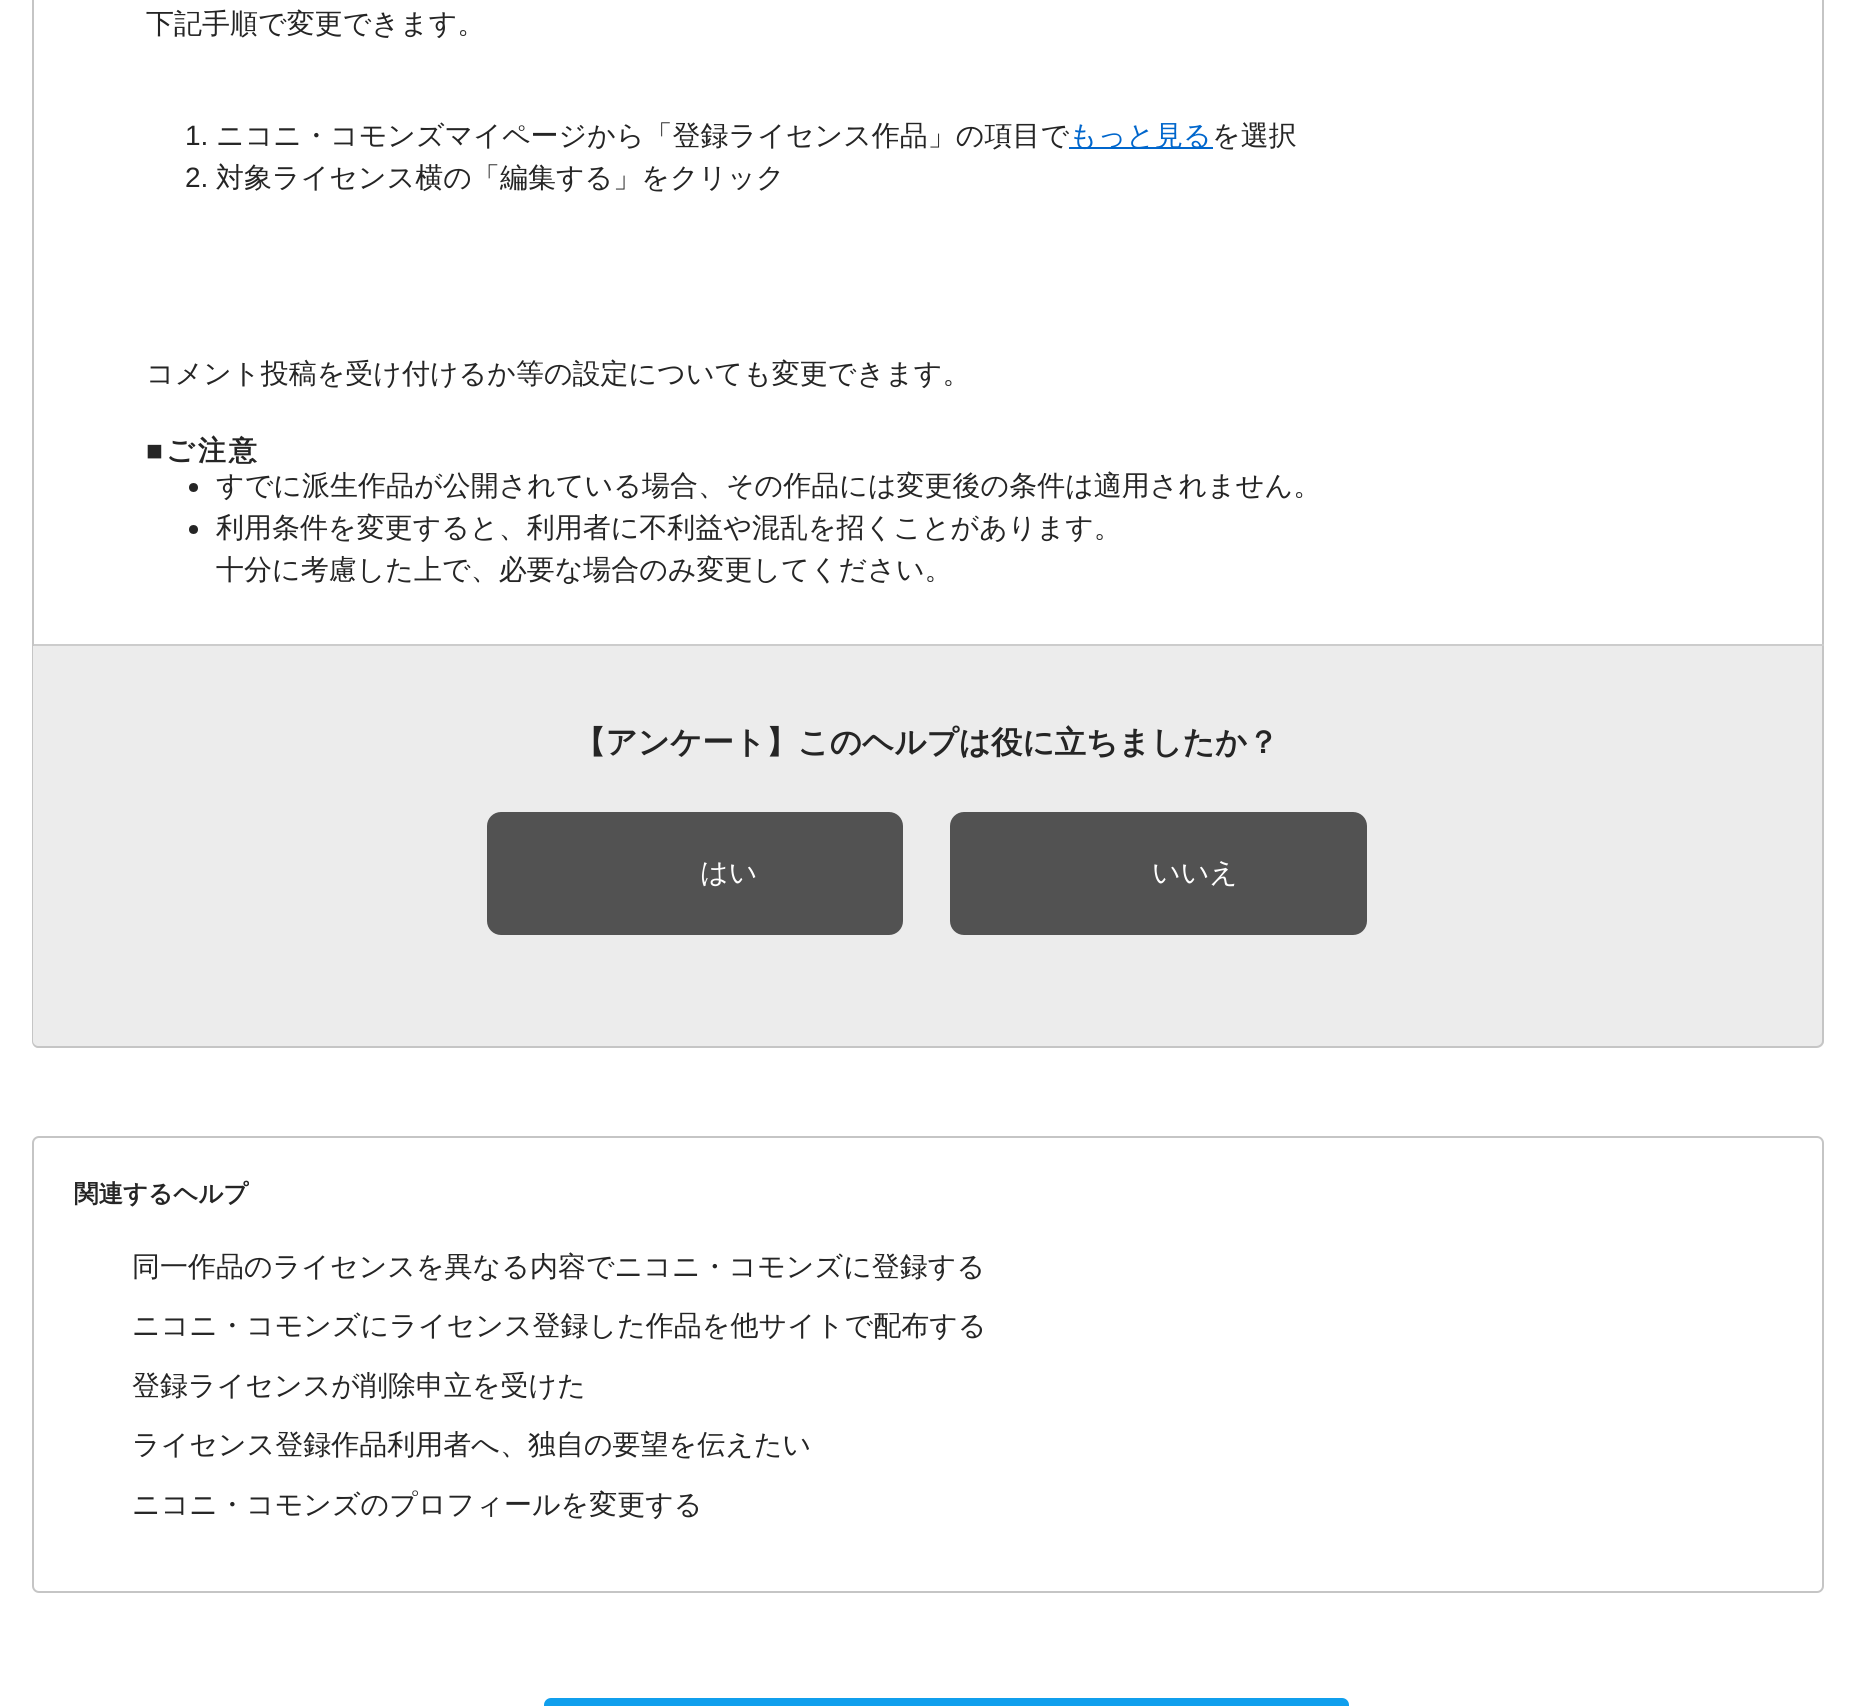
#include <cairo.h>
#include <math.h>
#include <stddef.h>

typedef struct { const char *family; double size; int italic, bold; unsigned color; } style_t;
static cairo_t *ctx;

static void ink(unsigned color) {
    cairo_set_source_rgb(ctx, (color >> 16) / 255.0, (color >> 8 & 255) / 255.0, (color & 255) / 255.0);
}

static void write(double x, double y, const char *s, const style_t *st) {
    cairo_select_font_face(ctx, st->family, st->italic ? CAIRO_FONT_SLANT_ITALIC : CAIRO_FONT_SLANT_NORMAL,
        st->bold ? CAIRO_FONT_WEIGHT_BOLD : CAIRO_FONT_WEIGHT_NORMAL);
    cairo_set_font_size(ctx, st->size);
    ink(st->color);
    cairo_move_to(ctx, x, y);
    cairo_show_text(ctx, s);
}

static void write_spaced(double x, double y, const char *s, double letter, double word) {
    cairo_move_to(ctx, x, y);
    while (*s) {
        char ch[5] = {0};
        int n = 0;
        do ch[n++] = *s++; while ((*s & 0xC0) == 0x80);
        cairo_show_text(ctx, ch);
        cairo_rel_move_to(ctx, letter + word * (*ch == ' '), 0);
    }
}

static void block(double x, double y, double w, double h, unsigned color) {
    ink(color);
    cairo_rectangle(ctx, x, y, w, h);
    cairo_fill(ctx);
}

static void round_path(double x, double y, double w, double h, double r) {
    cairo_new_sub_path(ctx);
    cairo_arc(ctx, x + w - r, y + h - r, r, 0, M_PI / 2);
    cairo_arc(ctx, x + r, y + h - r, r, M_PI / 2, M_PI);
    cairo_arc(ctx, x + r, y + r, r, M_PI, 1.5 * M_PI);
    cairo_arc(ctx, x + w - r, y + r, r, 1.5 * M_PI, 2 * M_PI);
    cairo_close_path(ctx);
}

static const style_t s1 = {"WenQuanYi Zen Hei Medium", 28, 0, 0, 0x252525};
static const style_t s2 = {"Liberation Sans", 28, 0, 0, 0x252525};
static const style_t s3 = {"WenQuanYi Zen Hei Medium", 28, 0, 0, 0x0066cc};
static const style_t s4 = {"WenQuanYi Zen Hei", 31.5, 0, 1, 0x252525};
static const style_t s5 = {"WenQuanYi Zen Hei Medium", 28, 0, 0, 0xffffff};
static const style_t s6 = {"WenQuanYi Zen Hei", 24.5, 0, 1, 0x252525};

int main(void) {
    cairo_surface_t *surface = cairo_image_surface_create(CAIRO_FORMAT_RGB24, 1853, 1706);
    ctx = cairo_create(surface);
    cairo_font_options_t *options = cairo_font_options_create();
    cairo_font_options_set_hint_metrics(options, CAIRO_HINT_METRICS_OFF);
    cairo_font_options_set_hint_style(options, CAIRO_HINT_STYLE_NONE);
    cairo_set_font_options(ctx, options);
    cairo_set_miter_limit(ctx, 4);
    ink(0xffffff);
    cairo_paint(ctx);
    block(1822, 0, 2, 646, 0xc5c5c5);
    block(32, 644, 1792, 2, 0xcccccc);
    block(32, 0, 2, 646, 0xc5c5c5);
    write(146, 33, "下記手順で変更できます。", &s1);
    write(185, 145, "1.", &s2);
    write(216, 145, "ニコニ・コモンズマイページから「登録ライセンス作品」の項目で", &s1);
    block(1069, 147, 144, 2, 0x0066cc);
    write(1069, 145, "もっと見る", &s3);
    write(1212, 145, "を選択", &s1);
    write(185, 187, "2.", &s2);
    write(216, 187, "対象ライセンス横の「編集する」をクリック", &s1);
    write(146, 383, "コメント投稿を受け付けるか等の設定についても変更できます。", &s1);
    cairo_select_font_face(ctx, "Liberation Sans", CAIRO_FONT_SLANT_NORMAL, CAIRO_FONT_WEIGHT_BOLD);
    write_spaced(146, 460, "■", 3, 0);
    cairo_select_font_face(ctx, "WenQuanYi Zen Hei", CAIRO_FONT_SLANT_NORMAL, CAIRO_FONT_WEIGHT_BOLD);
    write_spaced(166, 460, "ご注意", 3, 0);
    cairo_new_path(ctx);
    cairo_arc(ctx, 193.5, 487.5, 4.5, 0, 2 * M_PI);
    cairo_fill(ctx);
    write(216, 495, "すでに派生作品が公開されている場合、その作品には変更後の条件は適用されません。", &s1);
    cairo_new_path(ctx);
    cairo_arc(ctx, 193.5, 529.5, 4.5, 0, 2 * M_PI);
    cairo_fill(ctx);
    write(216, 537, "利用条件を変更すると、利用者に不利益や混乱を招くことがあります。", &s1);
    write(216, 579, "十分に考慮した上で、必要な場合のみ変更してください。", &s1);
    ink(0xececec);
    cairo_new_path(ctx);
    cairo_move_to(ctx, 32, 646);
    cairo_line_to(ctx, 1824, 646);
    cairo_line_to(ctx, 1824, 1041);
    cairo_curve_to(ctx, 1824, 1045, 1821, 1048, 1817, 1048);
    cairo_line_to(ctx, 39, 1048);
    cairo_curve_to(ctx, 35, 1048, 32, 1045, 32, 1041);
    cairo_close_path(ctx);
    cairo_fill(ctx);
    ink(0xc5c5c5);
    cairo_set_fill_rule(ctx, CAIRO_FILL_RULE_EVEN_ODD);
    cairo_new_path(ctx);
    cairo_move_to(ctx, 32, 646);
    cairo_line_to(ctx, 1824, 646);
    cairo_line_to(ctx, 1824, 1041);
    cairo_curve_to(ctx, 1824, 1045, 1820, 1048, 1816, 1048);
    cairo_line_to(ctx, 38, 1048);
    cairo_curve_to(ctx, 35, 1048, 32, 1045, 32, 1041);
    cairo_close_path(ctx);
    cairo_move_to(ctx, 33, 646);
    cairo_line_to(ctx, 1822, 646);
    cairo_line_to(ctx, 1822, 1041);
    cairo_curve_to(ctx, 1822, 1044, 1819, 1046, 1816, 1046);
    cairo_line_to(ctx, 38, 1046);
    cairo_curve_to(ctx, 36, 1046, 33, 1044, 33, 1041);
    cairo_close_path(ctx);
    cairo_fill(ctx);
    write(574, 753, "【アンケート】このヘルプは役に立ちましたか？", &s4);
    ink(0x525252);
    round_path(487, 812, 416, 123, 14);
    cairo_fill(ctx);
    write(700, 882, "はい", &s5);
    ink(0x525252);
    round_path(950, 812, 417, 123, 14);
    cairo_fill(ctx);
    write(1152, 882, "いいえ", &s5);
    round_path(33, 1137, 1790, 455, 6);
    ink(0xc5c5c5);
    cairo_stroke(ctx);
    write(74, 1202, "関連するヘルプ", &s6);
    write(132, 1276, "同一作品のライセンスを異なる内容でニコニ・コモンズに登録する", &s1);
    write(132, 1335, "ニコニ・コモンズにライセンス登録した作品を他サイトで配布する", &s1);
    write(132, 1395, "登録ライセンスが削除申立を受けた", &s1);
    write(132, 1454, "ライセンス登録作品利用者へ、独自の要望を伝えたい", &s1);
    write(132, 1514, "ニコニ・コモンズのプロフィールを変更する", &s1);
    ink(0x109fed);
    round_path(544, 1698, 805, 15, 7);
    cairo_fill(ctx);
    cairo_surface_write_to_png(surface, "screenshot.png");
    cairo_font_options_destroy(options);
    cairo_destroy(ctx);
    cairo_surface_destroy(surface);
    return 0;
}
